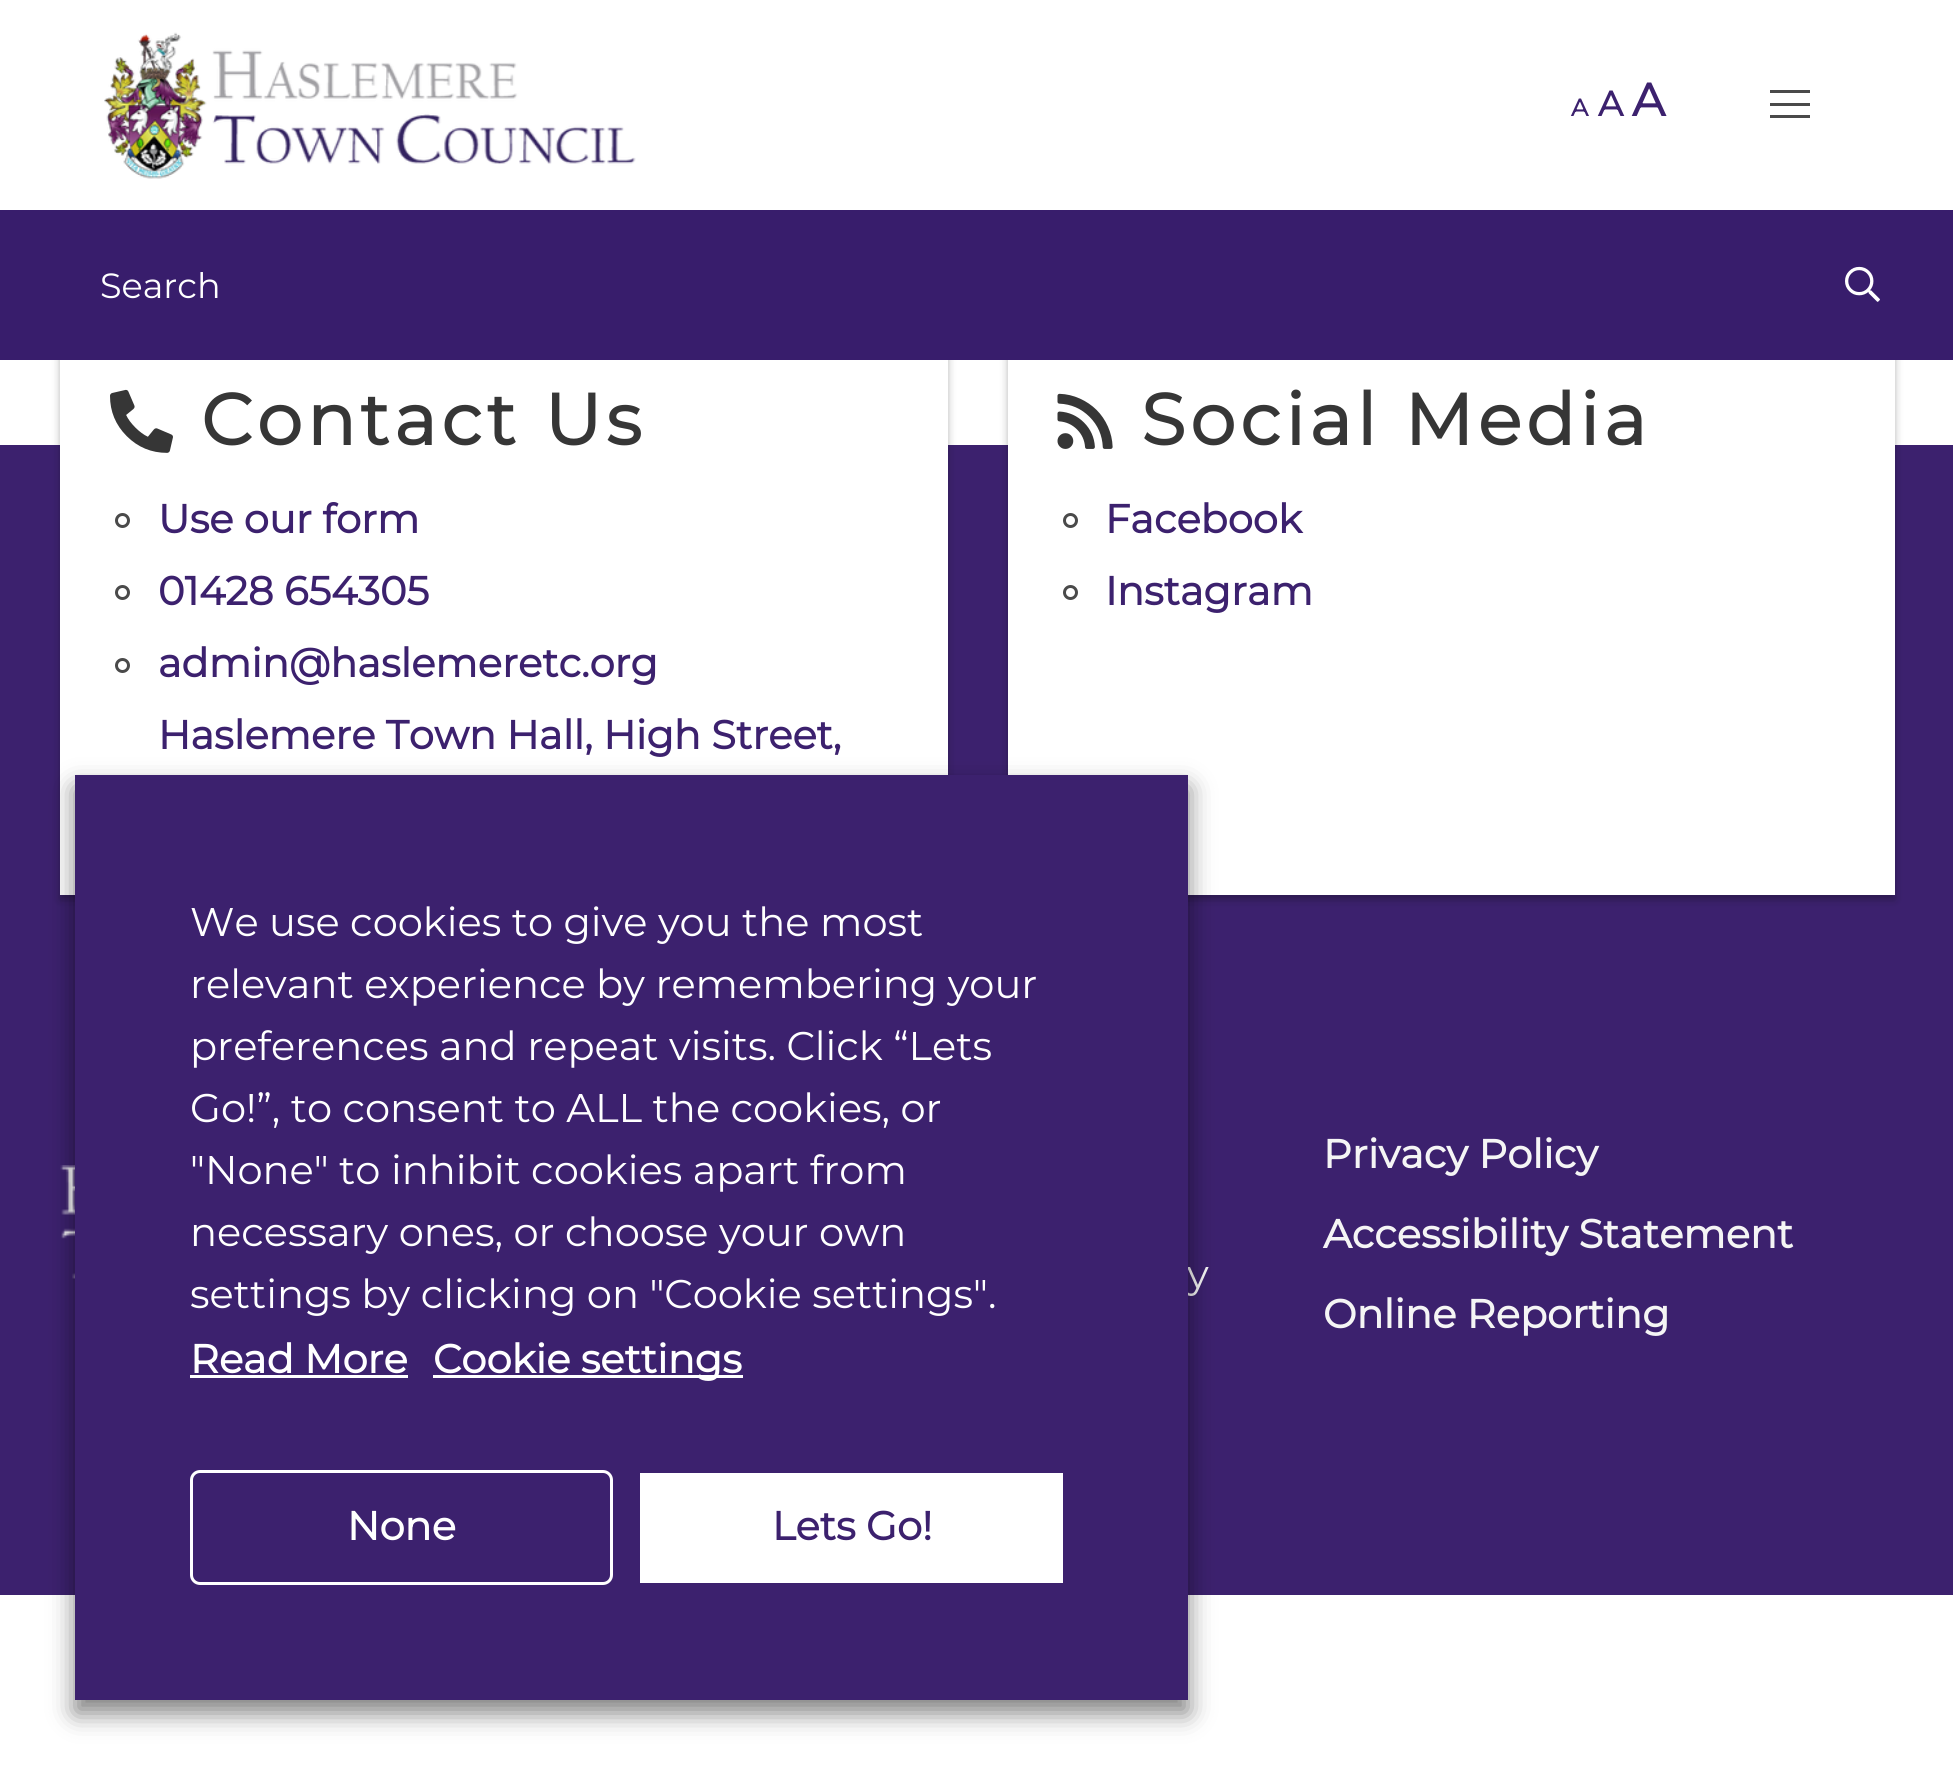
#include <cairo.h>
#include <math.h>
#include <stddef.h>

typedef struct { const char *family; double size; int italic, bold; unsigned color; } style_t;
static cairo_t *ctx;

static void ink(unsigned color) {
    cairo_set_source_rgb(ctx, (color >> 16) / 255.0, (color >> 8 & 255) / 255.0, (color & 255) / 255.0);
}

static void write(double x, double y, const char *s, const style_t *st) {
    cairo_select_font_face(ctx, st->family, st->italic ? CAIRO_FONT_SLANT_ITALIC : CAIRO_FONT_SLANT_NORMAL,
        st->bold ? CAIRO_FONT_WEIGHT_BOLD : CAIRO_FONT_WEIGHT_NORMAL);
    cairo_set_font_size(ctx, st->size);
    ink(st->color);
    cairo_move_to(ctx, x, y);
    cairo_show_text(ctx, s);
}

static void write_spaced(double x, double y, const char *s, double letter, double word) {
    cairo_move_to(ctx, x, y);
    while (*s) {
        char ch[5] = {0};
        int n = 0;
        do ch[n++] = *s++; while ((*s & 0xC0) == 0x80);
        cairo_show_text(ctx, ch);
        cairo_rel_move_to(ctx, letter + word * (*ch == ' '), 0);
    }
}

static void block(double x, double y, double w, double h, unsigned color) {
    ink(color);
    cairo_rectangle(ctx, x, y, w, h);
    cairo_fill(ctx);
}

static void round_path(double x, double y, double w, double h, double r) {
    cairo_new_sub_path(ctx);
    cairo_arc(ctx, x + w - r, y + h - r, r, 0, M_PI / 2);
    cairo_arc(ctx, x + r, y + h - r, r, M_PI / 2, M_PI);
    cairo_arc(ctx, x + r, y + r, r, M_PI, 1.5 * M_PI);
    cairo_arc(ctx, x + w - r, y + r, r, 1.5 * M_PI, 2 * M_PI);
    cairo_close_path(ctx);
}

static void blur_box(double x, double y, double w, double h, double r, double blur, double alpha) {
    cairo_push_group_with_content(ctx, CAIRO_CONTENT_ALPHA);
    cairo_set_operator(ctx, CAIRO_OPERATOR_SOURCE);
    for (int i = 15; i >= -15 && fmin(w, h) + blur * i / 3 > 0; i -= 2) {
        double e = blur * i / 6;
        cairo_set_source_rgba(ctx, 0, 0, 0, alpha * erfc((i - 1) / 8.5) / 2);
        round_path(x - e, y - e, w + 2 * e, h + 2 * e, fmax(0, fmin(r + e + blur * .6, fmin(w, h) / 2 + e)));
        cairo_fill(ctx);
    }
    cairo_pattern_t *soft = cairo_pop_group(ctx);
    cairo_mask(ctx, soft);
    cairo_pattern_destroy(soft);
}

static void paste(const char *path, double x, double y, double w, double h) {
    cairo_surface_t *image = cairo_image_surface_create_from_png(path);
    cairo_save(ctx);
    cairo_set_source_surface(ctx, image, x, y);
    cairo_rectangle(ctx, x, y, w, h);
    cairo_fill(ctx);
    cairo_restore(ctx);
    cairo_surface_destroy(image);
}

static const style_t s1 = {"Montserrat", 24, 0, 1, 0x3c216e};
static const style_t s2 = {"Montserrat", 35, 0, 1, 0x3c216e};
static const style_t s3 = {"Montserrat", 46, 0, 1, 0x3c216e};
static const style_t s4 = {"Montserrat Thin", 35, 0, 0, 0xffffff};
static const style_t s5 = {"Montserrat", 40, 0, 1, 0x3c216e};
static const style_t s6 = {"Montserrat Thin", 40, 0, 0, 0xf5f5f5};
static const style_t s7 = {"Montserrat", 40, 0, 1, 0xf5f5f5};
static const style_t s8 = {"Montserrat Thin", 40, 0, 0, 0xffffff};
static const style_t s9 = {"Montserrat", 40, 0, 1, 0xffffff};

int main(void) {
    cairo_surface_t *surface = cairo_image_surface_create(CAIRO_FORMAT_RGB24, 1953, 1773);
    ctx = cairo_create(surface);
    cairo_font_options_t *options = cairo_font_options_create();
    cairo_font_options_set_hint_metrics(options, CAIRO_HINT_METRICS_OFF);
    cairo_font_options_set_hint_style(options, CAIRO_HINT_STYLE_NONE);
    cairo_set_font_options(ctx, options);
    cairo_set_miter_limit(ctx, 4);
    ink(0xffffff);
    cairo_paint(ctx);
    paste("pic1.png", 104, 32, 532, 147);
    write(1571, 116, "A", &s1);
    write(1598, 116, "A", &s2);
    write(1632, 116, "A", &s3);
    block(1770, 90, 40, 3, 0x4a4a4a);
    block(1770, 103, 40, 3, 0x4a4a4a);
    block(1770, 115, 40, 3, 0x4a4a4a);
    block(0, 445, 1953, 1150, 0x3c216e);
    ink(0x0a0a0a);
    blur_box(60, 330, 888, 570, 0, 4, 0.3);
    blur_box(1008, 330, 887, 570, 0, 4, 0.3);
    block(0, 210, 1953, 150, 0x381d6c);
    write(100, 298, "Search", &s4);
    paste("pic2.png", 1845, 266, 35, 36);
    block(60, 360, 888, 535, 0xffffff);
    paste("pic3.png", 110, 389, 63, 64);
    cairo_select_font_face(ctx, "Montserrat", CAIRO_FONT_SLANT_NORMAL, CAIRO_FONT_WEIGHT_BOLD);
    cairo_set_font_size(ctx, 72);
    ink(0x363636);
    write_spaced(201, 445, "Contact Us", 4.75, 0);
    cairo_new_path(ctx);
    cairo_arc(ctx, 122.5, 520.5, 6, 0, 2 * M_PI);
    ink(0x4a4a4a);
    cairo_set_line_width(ctx, 3);
    cairo_stroke(ctx);
    write(158, 533, "Use our form", &s5);
    cairo_new_path(ctx);
    cairo_arc(ctx, 122.5, 592.5, 6, 0, 2 * M_PI);
    ink(0x4a4a4a);
    cairo_stroke(ctx);
    write(158, 605, "01428 654305", &s5);
    cairo_new_path(ctx);
    cairo_arc(ctx, 122.5, 665.5, 6, 0, 2 * M_PI);
    ink(0x4a4a4a);
    cairo_stroke(ctx);
    write(158, 677, "admin@haslemeretc.org", &s5);
    write(158, 749, "Haslemere Town Hall, High Street,", &s5);
    block(1008, 360, 887, 535, 0xffffff);
    paste("pic4.png", 1057, 393, 56, 56);
    cairo_set_font_size(ctx, 72);
    ink(0x363636);
    write_spaced(1141, 445, "Social Media", 4.75, 0);
    cairo_new_path(ctx);
    cairo_arc(ctx, 1070.5, 520.5, 6, 0, 2 * M_PI);
    ink(0x4a4a4a);
    cairo_stroke(ctx);
    write(1105, 533, "Facebook", &s5);
    cairo_new_path(ctx);
    cairo_arc(ctx, 1070.5, 592.5, 6, 0, 2 * M_PI);
    ink(0x4a4a4a);
    cairo_stroke(ctx);
    write(1105, 605, "Instagram", &s5);
    paste("pic5.png", 60, 1165, 15, 114);
    write(1187, 1288, "y", &s6);
    write(1323, 1168, "Privacy Policy", &s7);
    write(1323, 1248, "Accessibility Statement", &s7);
    write(1323, 1328, "Online Reporting", &s7);
    ink(0x000000);
    blur_box(75, 788, 1113, 925, 0, 12.5, 0.5);
    block(75, 775, 1113, 925, 0x3c216e);
    write(190, 936, "We use cookies to give you the most", &s8);
    write(190, 998, "relevant experience by remembering your", &s8);
    write(190, 1060, "preferences and repeat visits. Click “Lets", &s8);
    write(190, 1122, "Go!”, to consent to ALL the cookies, or", &s8);
    write(190, 1184, "\"None\" to inhibit cookies apart from", &s8);
    write(190, 1246, "necessary ones, or choose your own", &s8);
    write(190, 1308, "settings by clicking on \"Cookie settings\".", &s8);
    write(190, 1373, "Read More", &s9);
    block(190, 1375, 218, 3, 0xffffff);
    block(433, 1375, 310, 3, 0xffffff);
    write(433, 1373, "Cookie settings", &s9);
    round_path(191.5, 1471.5, 420, 112, 8.5);
    cairo_stroke(ctx);
    write(347, 1540, "None", &s9);
    block(640, 1473, 423, 110, 0xffffff);
    write(772, 1540, "Lets Go!", &s5);
    cairo_surface_write_to_png(surface, "screenshot.png");
    cairo_font_options_destroy(options);
    cairo_destroy(ctx);
    cairo_surface_destroy(surface);
    return 0;
}
